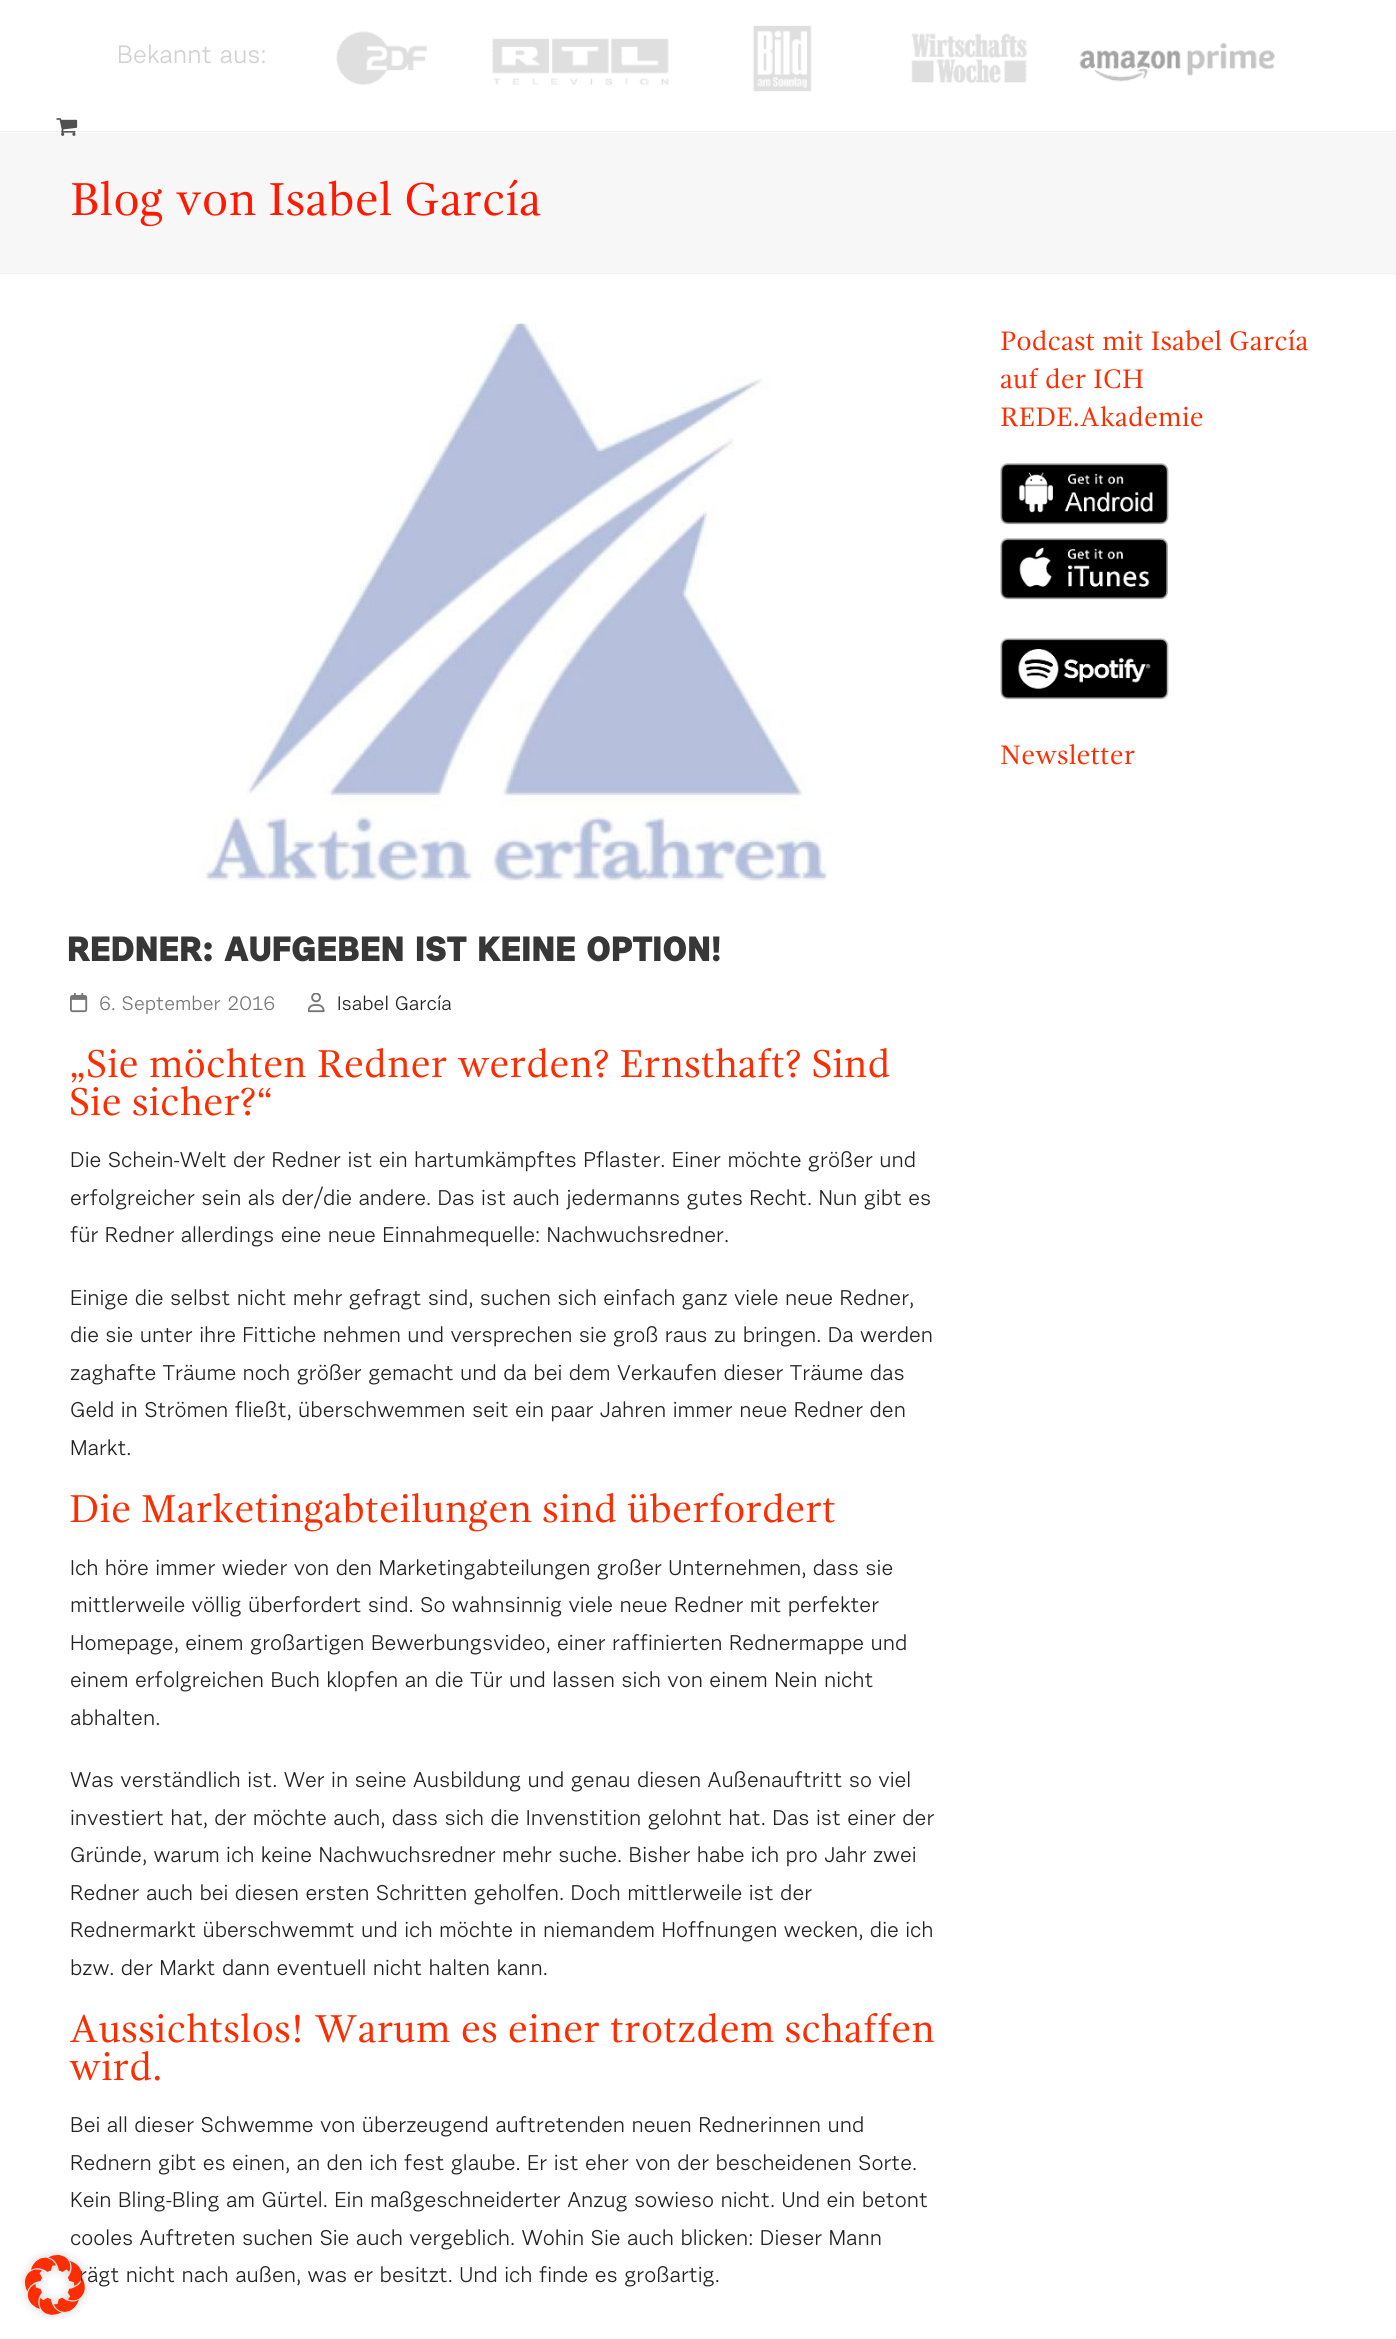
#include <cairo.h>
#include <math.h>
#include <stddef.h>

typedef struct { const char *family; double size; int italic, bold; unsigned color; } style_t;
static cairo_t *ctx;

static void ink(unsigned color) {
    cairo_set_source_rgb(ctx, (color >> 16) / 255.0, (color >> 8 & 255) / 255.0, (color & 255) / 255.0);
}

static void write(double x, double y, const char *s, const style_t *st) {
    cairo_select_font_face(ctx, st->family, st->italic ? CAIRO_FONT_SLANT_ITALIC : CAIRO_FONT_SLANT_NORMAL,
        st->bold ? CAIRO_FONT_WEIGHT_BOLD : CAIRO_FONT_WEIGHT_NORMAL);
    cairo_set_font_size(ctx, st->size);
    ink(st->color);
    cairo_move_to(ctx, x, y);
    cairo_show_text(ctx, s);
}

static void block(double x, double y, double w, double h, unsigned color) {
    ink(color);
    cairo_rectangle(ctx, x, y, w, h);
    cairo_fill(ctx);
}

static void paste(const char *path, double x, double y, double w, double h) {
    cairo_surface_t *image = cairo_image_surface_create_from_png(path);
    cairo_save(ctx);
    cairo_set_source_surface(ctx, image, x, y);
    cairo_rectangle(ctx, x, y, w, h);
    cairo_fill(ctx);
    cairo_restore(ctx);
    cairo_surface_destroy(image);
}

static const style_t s1 = {"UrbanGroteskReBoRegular", 21.25, 0, 0, 0x232323};
static const style_t s2 = {"UrbanGroteskReBoRegular", 25, 0, 0, 0xd1d1d1};
static const style_t s3 = {"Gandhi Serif", 47.5, 0, 0, 0xff1900};
static const style_t s4 = {"Gandhi Serif", 27.5, 0, 0, 0xfc2d01};
static const style_t s5 = {"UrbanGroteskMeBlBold", 35, 0, 1, 0x383737};
static const style_t s6 = {"UrbanGroteskReBoRegular", 19.5, 0, 0, 0x757575};
static const style_t s7 = {"UrbanGroteskReBoRegular", 19.5, 0, 0, 0x232323};
static const style_t s8 = {"Gandhi Serif", 40, 0, 0, 0xfc2d01};

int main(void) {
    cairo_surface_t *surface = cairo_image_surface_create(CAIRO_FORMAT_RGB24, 1396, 2339);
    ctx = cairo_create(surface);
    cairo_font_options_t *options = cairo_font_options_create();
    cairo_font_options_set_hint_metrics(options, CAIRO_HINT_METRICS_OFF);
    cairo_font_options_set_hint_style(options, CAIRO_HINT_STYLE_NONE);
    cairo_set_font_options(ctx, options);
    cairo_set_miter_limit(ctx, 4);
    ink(0xffffff);
    cairo_paint(ctx);
    write(79, 2282, "rägt nicht nach außen, was er besitzt. Und ich finde es großartig.", &s1);
    paste("pic1.png", 20, 2250, 70, 70);
    write(117, 63, "Bekannt aus:", &s2);
    paste("pic2.png", 336, 25, 939, 67);
    block(0, 133, 1396, 140, 0xf7f7f7);
    block(0, 131, 1396, 1, 0xeeeeee);
    paste("pic3.png", 56, 118, 22, 18);
    block(0, 273, 1396, 1, 0xeeeeee);
    write(70, 215, "Blog von Isabel García", &s3);
    write(1000, 350, "Podcast mit Isabel García", &s4);
    write(1000, 388, "auf der ICH", &s4);
    write(1000, 426, "REDE.Akademie", &s4);
    paste("pic4.png", 1000, 463, 169, 62);
    paste("pic5.png", 1000, 538, 168, 62);
    paste("pic6.png", 1000, 638, 169, 62);
    write(1000, 764, "Newsletter", &s4);
    paste("pic7.png", 196, 323, 632, 559);
    write(67, 961, "REDNER: AUFGEBEN IST KEINE OPTION!", &s5);
    paste("pic8.png", 70, 993, 18, 20);
    write(99, 1010, "6. September 2016", &s6);
    paste("pic9.png", 308, 993, 17, 20);
    write(337, 1010, "Isabel García", &s7);
    write(69, 1077, "„Sie möchten Redner werden? Ernsthaft? Sind", &s8);
    write(69, 1115, "Sie sicher?“", &s8);
    write(70, 1167, "Die Schein-Welt der Redner ist ein hartumkämpftes Pflaster. Einer möchte größer und", &s1);
    write(70, 1205, "erfolgreicher sein als der/die andere. Das ist auch jedermanns gutes Recht. Nun gibt es", &s1);
    write(70, 1242, "für Redner allerdings eine neue Einnahmequelle: Nachwuchsredner.", &s1);
    write(70, 1305, "Einige die selbst nicht mehr gefragt sind, suchen sich einfach ganz viele neue Redner,", &s1);
    write(70, 1342, "die sie unter ihre Fittiche nehmen und versprechen sie groß raus zu bringen. Da werden", &s1);
    write(70, 1380, "zaghafte Träume noch größer gemacht und da bei dem Verkaufen dieser Träume das", &s1);
    write(70, 1417, "Geld in Strömen fließt, überschwemmen seit ein paar Jahren immer neue Redner den", &s1);
    write(70, 1455, "Markt.", &s1);
    write(69, 1522, "Die Marketingabteilungen sind überfordert", &s8);
    write(70, 1575, "Ich höre immer wieder von den Marketingabteilungen großer Unternehmen, dass sie", &s1);
    write(70, 1612, "mittlerweile völlig überfordert sind. So wahnsinnig viele neue Redner mit perfekter", &s1);
    write(70, 1650, "Homepage, einem großartigen Bewerbungsvideo, einer raffinierten Rednermappe und", &s1);
    write(70, 1687, "einem erfolgreichen Buch klopfen an die Tür und lassen sich von einem Nein nicht", &s1);
    write(70, 1725, "abhalten.", &s1);
    write(70, 1787, "Was verständlich ist. Wer in seine Ausbildung und genau diesen Außenauftritt so viel", &s1);
    write(70, 1825, "investiert hat, der möchte auch, dass sich die Invenstition gelohnt hat. Das ist einer der", &s1);
    write(70, 1862, "Gründe, warum ich keine Nachwuchsredner mehr suche. Bisher habe ich pro Jahr zwei", &s1);
    write(70, 1900, "Redner auch bei diesen ersten Schritten geholfen. Doch mittlerweile ist der", &s1);
    write(70, 1937, "Rednermarkt überschwemmt und ich möchte in niemandem Hoffnungen wecken, die ich", &s1);
    write(70, 1975, "bzw. der Markt dann eventuell nicht halten kann.", &s1);
    write(69, 2042, "Aussichtslos! Warum es einer trotzdem schaffen", &s8);
    write(69, 2080, "wird.", &s8);
    write(70, 2132, "Bei all dieser Schwemme von überzeugend auftretenden neuen Rednerinnen und", &s1);
    write(70, 2170, "Rednern gibt es einen, an den ich fest glaube. Er ist eher von der bescheidenen Sorte.", &s1);
    write(70, 2207, "Kein Bling-Bling am Gürtel. Ein maßgeschneiderter Anzug sowieso nicht. Und ein betont", &s1);
    write(70, 2245, "cooles Auftreten suchen Sie auch vergeblich. Wohin Sie auch blicken: Dieser Mann", &s1);
    cairo_surface_write_to_png(surface, "screenshot.png");
    cairo_font_options_destroy(options);
    cairo_destroy(ctx);
    cairo_surface_destroy(surface);
    return 0;
}
